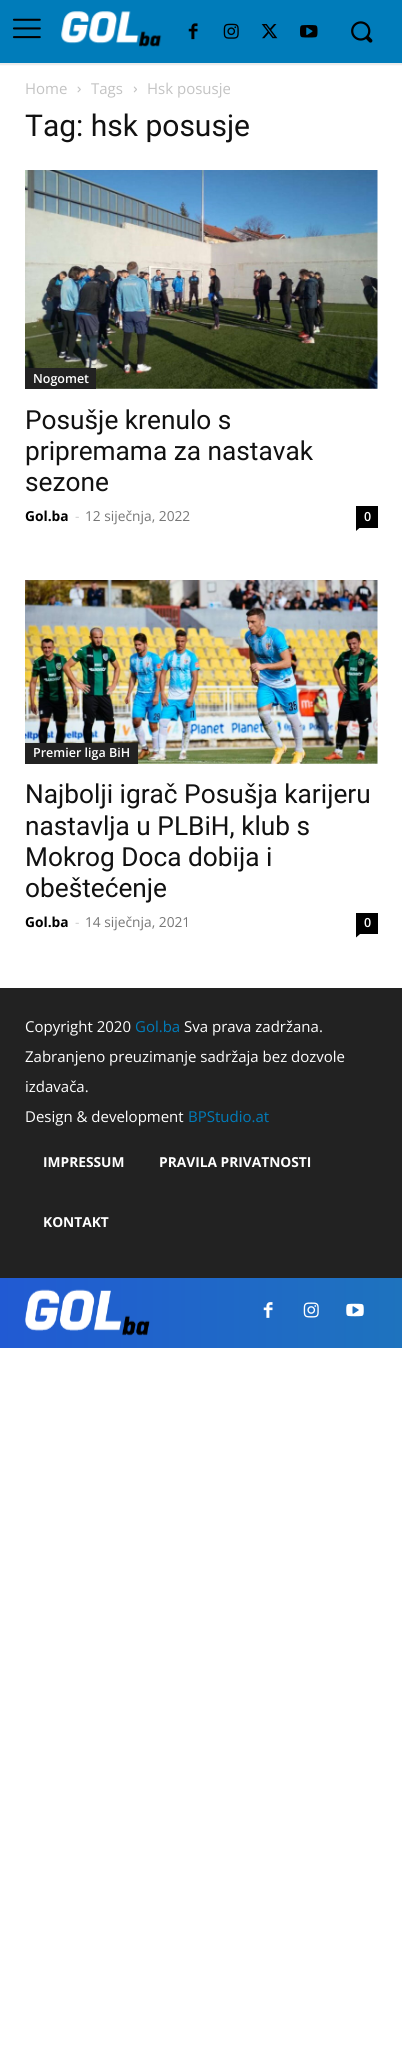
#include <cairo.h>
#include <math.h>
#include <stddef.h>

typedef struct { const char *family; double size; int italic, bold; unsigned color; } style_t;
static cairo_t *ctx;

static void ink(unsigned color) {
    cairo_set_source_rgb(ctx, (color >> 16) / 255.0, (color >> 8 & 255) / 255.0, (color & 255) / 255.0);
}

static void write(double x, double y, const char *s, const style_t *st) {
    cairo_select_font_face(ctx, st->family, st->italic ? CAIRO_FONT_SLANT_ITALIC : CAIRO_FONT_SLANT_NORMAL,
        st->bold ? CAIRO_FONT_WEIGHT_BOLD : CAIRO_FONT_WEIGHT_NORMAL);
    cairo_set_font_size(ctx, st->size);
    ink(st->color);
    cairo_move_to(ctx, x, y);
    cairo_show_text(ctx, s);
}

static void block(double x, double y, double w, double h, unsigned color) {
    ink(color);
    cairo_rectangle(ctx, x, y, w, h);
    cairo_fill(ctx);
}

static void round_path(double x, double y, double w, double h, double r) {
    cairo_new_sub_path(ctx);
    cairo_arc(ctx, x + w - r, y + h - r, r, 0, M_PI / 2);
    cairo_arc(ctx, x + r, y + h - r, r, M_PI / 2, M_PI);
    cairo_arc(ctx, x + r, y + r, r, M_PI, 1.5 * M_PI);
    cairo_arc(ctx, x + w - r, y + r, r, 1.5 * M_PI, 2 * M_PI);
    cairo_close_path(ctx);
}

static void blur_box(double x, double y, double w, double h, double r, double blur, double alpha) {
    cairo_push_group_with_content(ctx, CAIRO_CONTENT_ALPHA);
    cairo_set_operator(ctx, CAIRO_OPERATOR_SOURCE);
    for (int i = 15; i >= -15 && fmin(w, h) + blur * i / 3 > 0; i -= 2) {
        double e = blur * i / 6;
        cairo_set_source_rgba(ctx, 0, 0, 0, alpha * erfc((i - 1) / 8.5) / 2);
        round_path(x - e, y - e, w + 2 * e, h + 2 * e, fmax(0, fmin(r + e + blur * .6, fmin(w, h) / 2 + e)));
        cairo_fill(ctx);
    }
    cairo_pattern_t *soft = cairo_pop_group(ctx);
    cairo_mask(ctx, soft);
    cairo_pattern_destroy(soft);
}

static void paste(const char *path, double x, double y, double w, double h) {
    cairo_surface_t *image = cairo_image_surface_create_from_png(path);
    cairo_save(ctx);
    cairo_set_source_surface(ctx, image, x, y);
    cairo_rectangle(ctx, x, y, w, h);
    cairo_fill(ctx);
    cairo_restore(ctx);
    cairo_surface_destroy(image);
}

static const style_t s1 = {"Open Sans", 15, 0, 0, 0xc3c3c3};
static const style_t s2 = {"Roboto", 30, 0, 0, 0x111111};
static const style_t s3 = {"Open Sans SemiBold", 12.5, 0, 0, 0xffffff};
static const style_t s4 = {"Roboto", 26.25, 0, 0, 0x111111};
static const style_t s5 = {"Open Sans", 13.75, 0, 1, 0x000000};
static const style_t s6 = {"Open Sans", 13.75, 0, 0, 0xcccccc};
static const style_t s7 = {"Open Sans", 13.75, 0, 0, 0x767676};
static const style_t s8 = {"Open Sans", 15, 0, 0, 0xffffff};
static const style_t s9 = {"Open Sans", 15, 0, 0, 0x007cba};
static const style_t s10 = {"Open Sans", 13.75, 0, 1, 0xffffff};

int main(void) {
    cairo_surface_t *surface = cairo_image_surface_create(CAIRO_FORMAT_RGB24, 402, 2053);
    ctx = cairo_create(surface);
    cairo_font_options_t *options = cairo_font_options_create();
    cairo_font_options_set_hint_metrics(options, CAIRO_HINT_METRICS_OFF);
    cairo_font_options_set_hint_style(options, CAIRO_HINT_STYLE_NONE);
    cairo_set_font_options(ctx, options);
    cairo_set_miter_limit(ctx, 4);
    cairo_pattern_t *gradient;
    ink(0xffffff);
    cairo_paint(ctx);
    block(0, 0, 402, 63, 0x007cba);
    paste("pic1.png", 12, 18, 29, 21);
    paste("pic2.png", 61, 11, 101, 36);
    paste("pic3.png", 188, 23, 10, 17);
    paste("pic4.png", 223, 23, 16, 16);
    paste("pic5.png", 261, 24, 17, 15);
    paste("pic6.png", 300, 25, 18, 13);
    paste("pic7.png", 351, 21, 22, 22);
    cairo_save(ctx);
    cairo_set_fill_rule(ctx, CAIRO_FILL_RULE_EVEN_ODD);
    cairo_new_path(ctx);
    cairo_move_to(ctx, 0, 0);
    cairo_line_to(ctx, 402, 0);
    cairo_line_to(ctx, 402, 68);
    cairo_line_to(ctx, 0, 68);
    cairo_close_path(ctx);
    cairo_move_to(ctx, 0, 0);
    cairo_line_to(ctx, 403, 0);
    cairo_line_to(ctx, 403, 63);
    cairo_line_to(ctx, 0, 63);
    cairo_close_path(ctx);
    cairo_clip(ctx);
    ink(0x000000);
    blur_box(-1, 0, 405, 65, 0, 0.5, 0.08);
    cairo_restore(ctx);
    write(25, 94, "Home", &s1);
    paste("pic8.png", 77, 86, 4, 7);
    write(91, 94, "Tags", &s1);
    paste("pic9.png", 133, 86, 4, 7);
    write(147, 94, "Hsk posusje", &s1);
    write(25, 136, "Tag: hsk posusje", &s2);
    paste("pic10.png", 25, 170, 353, 219);
    block(25, 368, 71, 21, 0x222222);
    write(33, 383, "Nogomet", &s3);
    write(25, 429, "Posušje krenulo s", &s4);
    write(25, 460, "pripremama za nastavak", &s4);
    write(25, 491, "sezone", &s4);
    write(25, 521, "Gol.ba", &s5);
    write(75, 521, "-", &s6);
    write(85, 521, "12 siječnja, 2022", &s7);
    block(356, 506, 22, 22, 0x000000);
    write(364, 521, "0", &s3);
    ink(0x000000);
    cairo_new_path(ctx);
    cairo_move_to(ctx, 356, 527.5);
    cairo_line_to(ctx, 360, 527.5);
    cairo_line_to(ctx, 356, 531);
    cairo_close_path(ctx);
    cairo_fill(ctx);
    paste("pic11.png", 25, 580, 353, 184);
    block(25, 743, 113, 21, 0x222222);
    write(33, 757, "Premier liga BiH", &s3);
    write(25, 803, "Najbolji igrač Posušja karijeru", &s4);
    write(25, 835, "nastavlja u PLBiH, klub s", &s4);
    write(25, 866, "Mokrog Doca dobija i", &s4);
    write(25, 897, "obeštećenje", &s4);
    write(25, 927, "Gol.ba", &s5);
    write(75, 927, "-", &s6);
    write(85, 927, "14 siječnja, 2021", &s7);
    block(356, 913, 22, 21, 0x000000);
    write(364, 927, "0", &s3);
    ink(0x000000);
    cairo_new_path(ctx);
    cairo_move_to(ctx, 356, 934);
    cairo_line_to(ctx, 360, 934);
    cairo_line_to(ctx, 356, 937.5);
    cairo_close_path(ctx);
    cairo_fill(ctx);
    block(0, 988, 402, 290, 0x222222);
    write(25, 1032, "Copyright 2020", &s8);
    write(135, 1032, "Gol.ba", &s9);
    write(184, 1032, "Sva prava zadržana.", &s8);
    write(25, 1062, "Zabranjeno preuzimanje sadržaja bez dozvole", &s8);
    write(25, 1092, "izdavača.", &s8);
    write(25, 1122, "Design & development", &s8);
    write(188, 1122, "BPStudio.at", &s9);
    write(43, 1167, "IMPRESSUM", &s10);
    write(159, 1167, "PRAVILA PRIVATNOSTI", &s10);
    write(43, 1227, "KONTAKT", &s10);
    gradient = cairo_pattern_create_linear(0, 1313, 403, 1313);
    cairo_pattern_add_color_stop_rgba(gradient, 0, 0.129, 0.353, 0.827, 1);
    cairo_pattern_add_color_stop_rgba(gradient, 1, 0.118, 0.451, 0.745, 1);
    cairo_set_source(ctx, gradient);
    cairo_pattern_destroy(gradient);
    cairo_rectangle(ctx, 0, 1278, 402, 70);
    cairo_fill(ctx);
    paste("pic12.png", 25, 1289, 125, 47);
    paste("pic13.png", 263, 1302, 10, 16);
    paste("pic14.png", 303, 1302, 16, 16);
    paste("pic15.png", 346, 1303, 18, 14);
    cairo_surface_write_to_png(surface, "screenshot.png");
    cairo_font_options_destroy(options);
    cairo_destroy(ctx);
    cairo_surface_destroy(surface);
    return 0;
}
